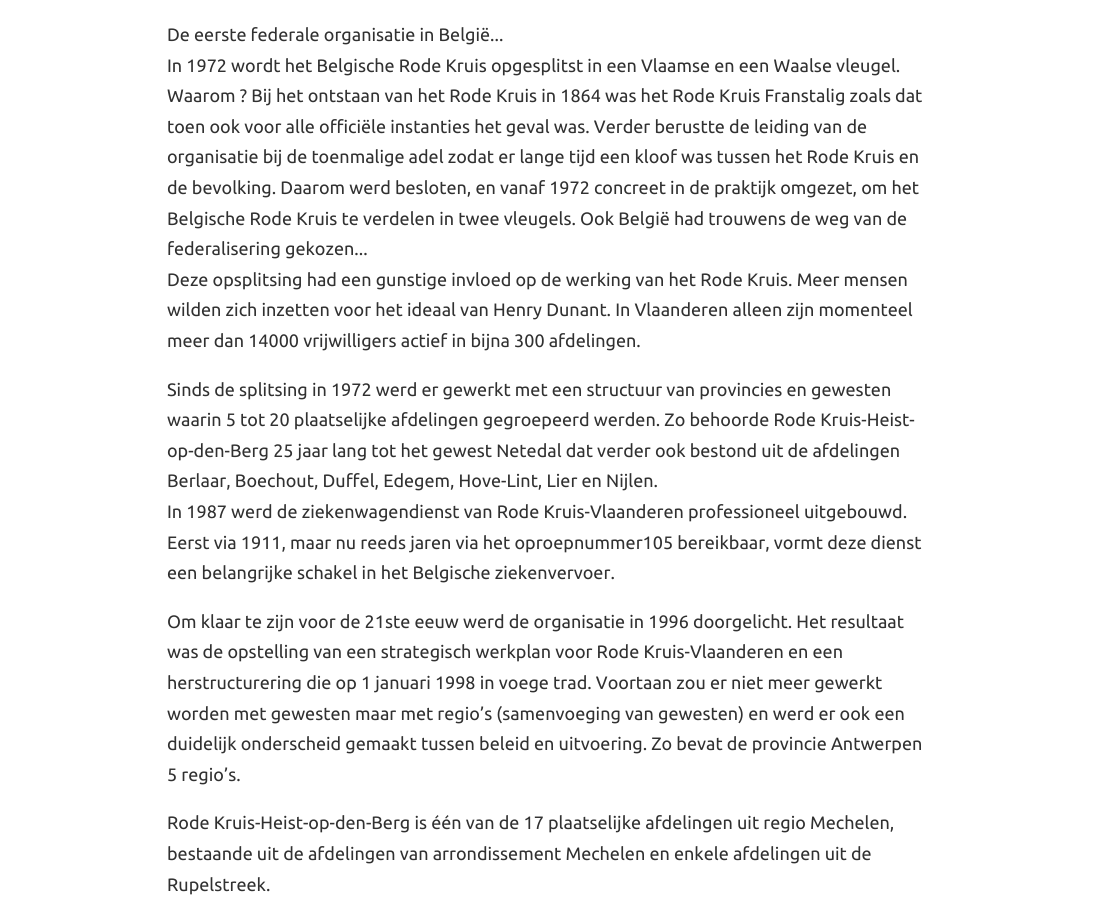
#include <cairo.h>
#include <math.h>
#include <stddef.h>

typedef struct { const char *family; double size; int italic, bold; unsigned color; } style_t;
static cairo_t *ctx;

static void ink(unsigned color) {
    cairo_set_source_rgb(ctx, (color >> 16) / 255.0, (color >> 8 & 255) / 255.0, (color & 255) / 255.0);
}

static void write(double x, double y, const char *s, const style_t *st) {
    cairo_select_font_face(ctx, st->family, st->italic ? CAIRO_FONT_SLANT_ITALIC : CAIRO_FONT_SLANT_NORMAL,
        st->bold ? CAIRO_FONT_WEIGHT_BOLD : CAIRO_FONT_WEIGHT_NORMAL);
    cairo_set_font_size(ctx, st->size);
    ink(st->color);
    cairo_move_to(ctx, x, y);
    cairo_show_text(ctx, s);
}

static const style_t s1 = {"Ubuntu", 18, 0, 0, 0x313131};

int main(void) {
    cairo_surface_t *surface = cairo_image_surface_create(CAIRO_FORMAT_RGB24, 1104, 916);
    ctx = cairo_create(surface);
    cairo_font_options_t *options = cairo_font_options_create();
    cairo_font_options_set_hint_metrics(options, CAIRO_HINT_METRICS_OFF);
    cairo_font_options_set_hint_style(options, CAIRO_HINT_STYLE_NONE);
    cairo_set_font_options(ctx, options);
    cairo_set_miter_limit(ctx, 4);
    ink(0xffffff);
    cairo_paint(ctx);
    write(167, 41, "De eerste federale organisatie in België...", &s1);
    write(167, 72, "In 1972 wordt het Belgische Rode Kruis opgesplitst in een Vlaamse en een Waalse vleugel.", &s1);
    write(167, 102, "Waarom ? Bij het ontstaan van het Rode Kruis in 1864 was het Rode Kruis Franstalig zoals dat", &s1);
    write(167, 133, "toen ook voor alle officiële instanties het geval was. Verder berustte de leiding van de", &s1);
    write(167, 163, "organisatie bij de toenmalige adel zodat er lange tijd een kloof was tussen het Rode Kruis en", &s1);
    write(167, 194, "de bevolking. Daarom werd besloten, en vanaf 1972 concreet in de praktijk omgezet, om het", &s1);
    write(167, 225, "Belgische Rode Kruis te verdelen in twee vleugels. Ook België had trouwens de weg van de", &s1);
    write(167, 255, "federalisering gekozen...", &s1);
    write(167, 286, "Deze opsplitsing had een gunstige invloed op de werking van het Rode Kruis. Meer mensen", &s1);
    write(167, 316, "wilden zich inzetten voor het ideaal van Henry Dunant. In Vlaanderen alleen zijn momenteel", &s1);
    write(167, 347, "meer dan 14000 vrijwilligers actief in bijna 300 afdelingen.", &s1);
    write(167, 396, "Sinds de splitsing in 1972 werd er gewerkt met een structuur van provincies en gewesten", &s1);
    write(167, 426, "waarin 5 tot 20 plaatselijke afdelingen gegroepeerd werden. Zo behoorde Rode Kruis-Heist-", &s1);
    write(167, 457, "op-den-Berg 25 jaar lang tot het gewest Netedal dat verder ook bestond uit de afdelingen", &s1);
    write(167, 487, "Berlaar, Boechout, Duffel, Edegem, Hove-Lint, Lier en Nijlen.", &s1);
    write(167, 518, "In 1987 werd de ziekenwagendienst van Rode Kruis-Vlaanderen professioneel uitgebouwd.", &s1);
    write(167, 549, "Eerst via 1911, maar nu reeds jaren via het oproepnummer105 bereikbaar, vormt deze dienst", &s1);
    write(167, 579, "een belangrijke schakel in het Belgische ziekenvervoer.", &s1);
    write(167, 628, "Om klaar te zijn voor de 21ste eeuw werd de organisatie in 1996 doorgelicht. Het resultaat", &s1);
    write(167, 658, "was de opstelling van een strategisch werkplan voor Rode Kruis-Vlaanderen en een", &s1);
    write(167, 689, "herstructurering die op 1 januari 1998 in voege trad. Voortaan zou er niet meer gewerkt", &s1);
    write(167, 720, "worden met gewesten maar met regio’s (samenvoeging van gewesten) en werd er ook een", &s1);
    write(167, 750, "duidelijk onderscheid gemaakt tussen beleid en uitvoering. Zo bevat de provincie Antwerpen", &s1);
    write(167, 781, "5 regio’s.", &s1);
    write(167, 829, "Rode Kruis-Heist-op-den-Berg is één van de 17 plaatselijke afdelingen uit regio Mechelen,", &s1);
    write(167, 860, "bestaande uit de afdelingen van arrondissement Mechelen en enkele afdelingen uit de", &s1);
    write(167, 891, "Rupelstreek.", &s1);
    cairo_surface_write_to_png(surface, "screenshot.png");
    cairo_font_options_destroy(options);
    cairo_destroy(ctx);
    cairo_surface_destroy(surface);
    return 0;
}
